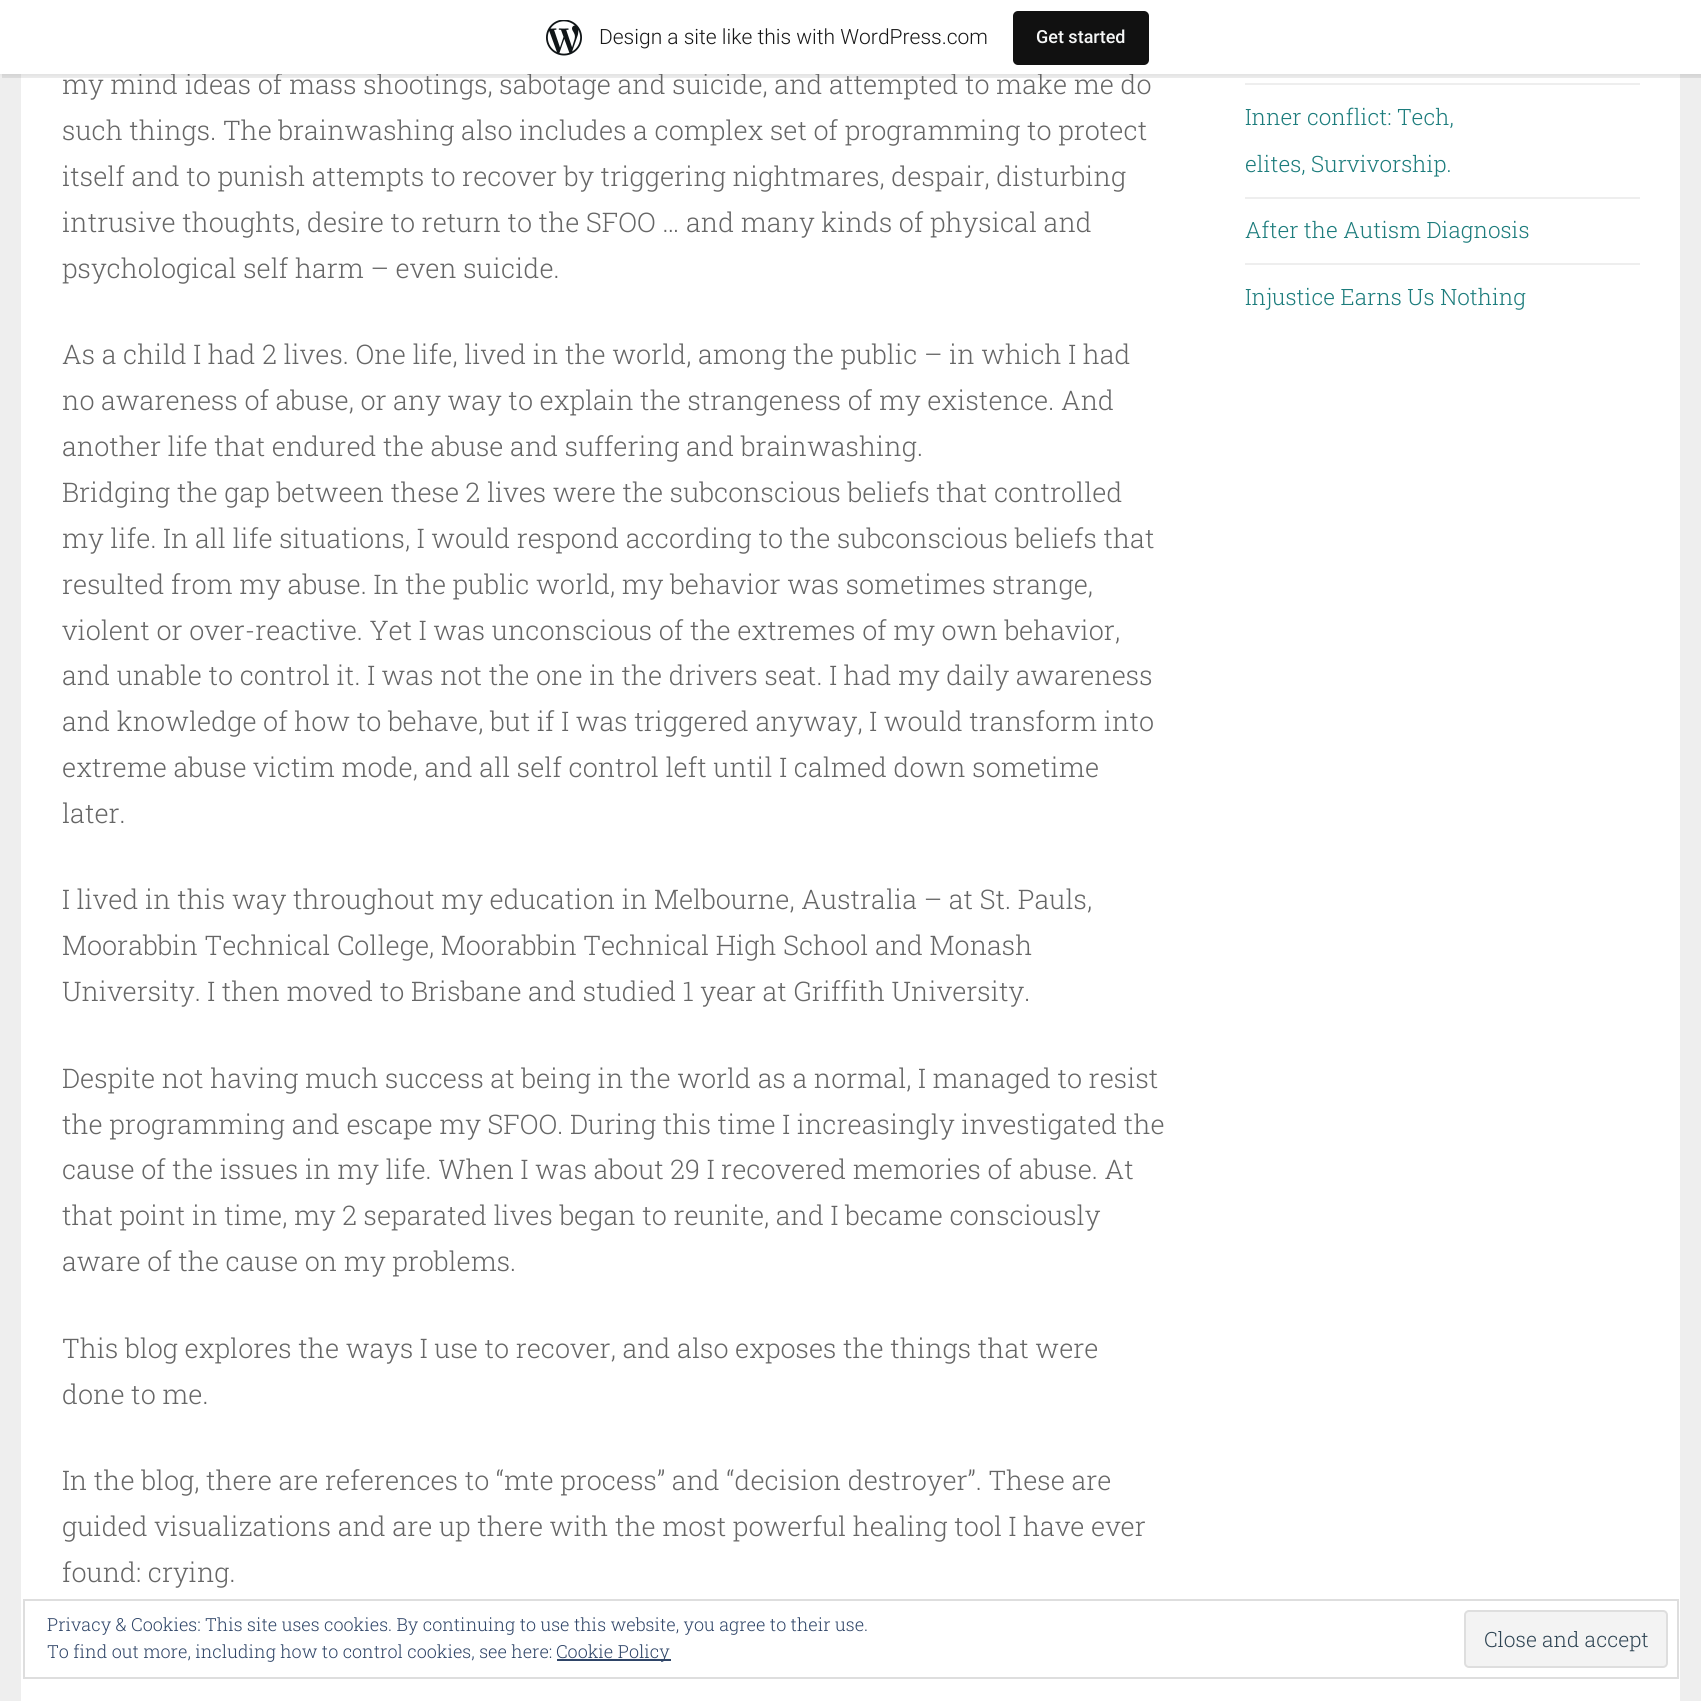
#include <cairo.h>
#include <math.h>
#include <stddef.h>

typedef struct { const char *family; double size; int italic, bold; unsigned color; } style_t;
static cairo_t *ctx;

static void ink(unsigned color) {
    cairo_set_source_rgb(ctx, (color >> 16) / 255.0, (color >> 8 & 255) / 255.0, (color & 255) / 255.0);
}

static void write(double x, double y, const char *s, const style_t *st) {
    cairo_select_font_face(ctx, st->family, st->italic ? CAIRO_FONT_SLANT_ITALIC : CAIRO_FONT_SLANT_NORMAL,
        st->bold ? CAIRO_FONT_WEIGHT_BOLD : CAIRO_FONT_WEIGHT_NORMAL);
    cairo_set_font_size(ctx, st->size);
    ink(st->color);
    cairo_move_to(ctx, x, y);
    cairo_show_text(ctx, s);
}

static void block(double x, double y, double w, double h, unsigned color) {
    ink(color);
    cairo_rectangle(ctx, x, y, w, h);
    cairo_fill(ctx);
}

static void round_path(double x, double y, double w, double h, double r) {
    cairo_new_sub_path(ctx);
    cairo_arc(ctx, x + w - r, y + h - r, r, 0, M_PI / 2);
    cairo_arc(ctx, x + r, y + h - r, r, M_PI / 2, M_PI);
    cairo_arc(ctx, x + r, y + r, r, M_PI, 1.5 * M_PI);
    cairo_arc(ctx, x + w - r, y + r, r, 1.5 * M_PI, 2 * M_PI);
    cairo_close_path(ctx);
}

static void blur_box(double x, double y, double w, double h, double r, double blur, double alpha) {
    cairo_push_group_with_content(ctx, CAIRO_CONTENT_ALPHA);
    cairo_set_operator(ctx, CAIRO_OPERATOR_SOURCE);
    for (int i = 15; i >= -15 && fmin(w, h) + blur * i / 3 > 0; i -= 2) {
        double e = blur * i / 6;
        cairo_set_source_rgba(ctx, 0, 0, 0, alpha * erfc((i - 1) / 8.5) / 2);
        round_path(x - e, y - e, w + 2 * e, h + 2 * e, fmax(0, fmin(r + e + blur * .6, fmin(w, h) / 2 + e)));
        cairo_fill(ctx);
    }
    cairo_pattern_t *soft = cairo_pop_group(ctx);
    cairo_mask(ctx, soft);
    cairo_pattern_destroy(soft);
}

static void paste(const char *path, double x, double y, double w, double h) {
    cairo_surface_t *image = cairo_image_surface_create_from_png(path);
    cairo_save(ctx);
    cairo_set_source_surface(ctx, image, x, y);
    cairo_rectangle(ctx, x, y, w, h);
    cairo_fill(ctx);
    cairo_restore(ctx);
    cairo_surface_destroy(image);
}

static const style_t s1 = {"Roboto Slab Light", 27, 0, 0, 0x666666};
static const style_t s2 = {"Roboto Light", 21, 0, 0, 0x171717};
static const style_t s3 = {"Roboto Medium", 18, 0, 0, 0xf6f7f7};
static const style_t s4 = {"Roboto Slab Light", 22.5, 0, 0, 0x1c7c7c};
static const style_t s5 = {"Roboto Slab Light", 18, 0, 0, 0x2e4467};
static const style_t s6 = {"Roboto Slab Light", 21, 0, 0, 0x2e4453};

int main(void) {
    cairo_surface_t *surface = cairo_image_surface_create(CAIRO_FORMAT_RGB24, 1701, 1701);
    ctx = cairo_create(surface);
    cairo_font_options_t *options = cairo_font_options_create();
    cairo_font_options_set_hint_metrics(options, CAIRO_HINT_METRICS_OFF);
    cairo_font_options_set_hint_style(options, CAIRO_HINT_STYLE_NONE);
    cairo_set_font_options(ctx, options);
    cairo_set_miter_limit(ctx, 4);
    ink(0xeeeeee);
    cairo_paint(ctx);
    block(21, 74, 1659, 1627, 0xffffff);
    ink(0x000000);
    blur_box(0, 2, 1701, 73, 0, 1.5, 0.05);
    cairo_set_source_rgba(ctx, 0, 0, 0, 0.08);
    cairo_new_path(ctx);
    cairo_move_to(ctx, 2, 74);
    cairo_line_to(ctx, 2, 78);
    cairo_line_to(ctx, 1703, 78);
    cairo_line_to(ctx, 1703, 5);
    cairo_line_to(ctx, 1701, 5);
    cairo_line_to(ctx, 1701, 74);
    cairo_close_path(ctx);
    cairo_fill(ctx);
    write(62, 94, "my mind ideas of mass shootings, sabotage and suicide, and attempted to make me do", &s1);
    block(0, 0, 1701, 74, 0xffffff);
    paste("pic1.png", 546, 20, 36, 36);
    write(599, 44, "Design a site like this with WordPress.com", &s2);
    ink(0x111111);
    round_path(1013, 11, 136, 54, 5);
    cairo_fill(ctx);
    write(1036, 43, "Get started", &s3);
    write(62, 140, "such things. The brainwashing also includes a complex set of programming to protect", &s1);
    write(62, 186, "itself and to punish attempts to recover by triggering nightmares, despair, disturbing", &s1);
    write(62, 232, "intrusive thoughts, desire to return to the SFOO … and many kinds of physical and", &s1);
    write(62, 278, "psychological self harm – even suicide.", &s1);
    write(62, 364, "As a child I had 2 lives. One life, lived in the world, among the public – in which I had", &s1);
    write(62, 410, "no awareness of abuse, or any way to explain the strangeness of my existence. And", &s1);
    write(62, 456, "another life that endured the abuse and suffering and brainwashing.", &s1);
    write(62, 502, "Bridging the gap between these 2 lives were the subconscious beliefs that controlled", &s1);
    write(62, 548, "my life. In all life situations, I would respond according to the subconscious beliefs that", &s1);
    write(62, 594, "resulted from my abuse. In the public world, my behavior was sometimes strange,", &s1);
    write(62, 640, "violent or over-reactive. Yet I was unconscious of the extremes of my own behavior,", &s1);
    write(62, 685, "and unable to control it. I was not the one in the drivers seat. I had my daily awareness", &s1);
    write(62, 731, "and knowledge of how to behave, but if I was triggered anyway, I would transform into", &s1);
    write(62, 777, "extreme abuse victim mode, and all self control left until I calmed down sometime", &s1);
    write(62, 823, "later.", &s1);
    write(62, 909, "I lived in this way throughout my education in Melbourne, Australia – at St. Pauls,", &s1);
    write(62, 955, "Moorabbin Technical College, Moorabbin Technical High School and Monash", &s1);
    write(62, 1001, "University. I then moved to Brisbane and studied 1 year at Griffith University.", &s1);
    write(62, 1088, "Despite not having much success at being in the world as a normal, I managed to resist", &s1);
    write(62, 1134, "the programming and escape my SFOO. During this time I increasingly investigated the", &s1);
    write(62, 1179, "cause of the issues in my life. When I was about 29 I recovered memories of abuse. At", &s1);
    write(62, 1225, "that point in time, my 2 separated lives began to reunite, and I became consciously", &s1);
    write(62, 1271, "aware of the cause on my problems.", &s1);
    write(62, 1358, "This blog explores the ways I use to recover, and also exposes the things that were", &s1);
    write(62, 1404, "done to me.", &s1);
    write(62, 1490, "In the blog, there are references to “mte process” and “decision destroyer”. These are", &s1);
    write(62, 1536, "guided visualizations and are up there with the most powerful healing tool I have ever", &s1);
    write(62, 1582, "found: crying.", &s1);
    block(1245, 83, 395, 2, 0xeeeeee);
    write(1245, 125, "Inner conflict: Tech,", &s4);
    write(1245, 172, "elites, Survivorship.", &s4);
    block(1245, 197, 395, 2, 0xeeeeee);
    write(1245, 238, "After the Autism Diagnosis", &s4);
    block(1245, 263, 395, 2, 0xeeeeee);
    write(1245, 305, "Injustice Earns Us Nothing", &s4);
    cairo_rectangle(ctx, 24, 1600, 1654, 78);
    ink(0xdedede);
    cairo_stroke(ctx);
    write(47, 1631, "Privacy & Cookies: This site uses cookies. By continuing to use this website, you agree to their use.", &s5);
    write(47, 1658, "To find out more, including how to control cookies, see here:", &s5);
    block(557, 1659, 114, 2, 0x2e4467);
    write(556, 1658, "Cookie Policy", &s5);
    ink(0xf3f3f3);
    round_path(1465, 1611, 202, 56, 4);
    cairo_fill_preserve(ctx);
    ink(0xdedede);
    cairo_stroke(ctx);
    write(1484, 1647, "Close and accept", &s6);
    cairo_surface_write_to_png(surface, "screenshot.png");
    cairo_font_options_destroy(options);
    cairo_destroy(ctx);
    cairo_surface_destroy(surface);
    return 0;
}
